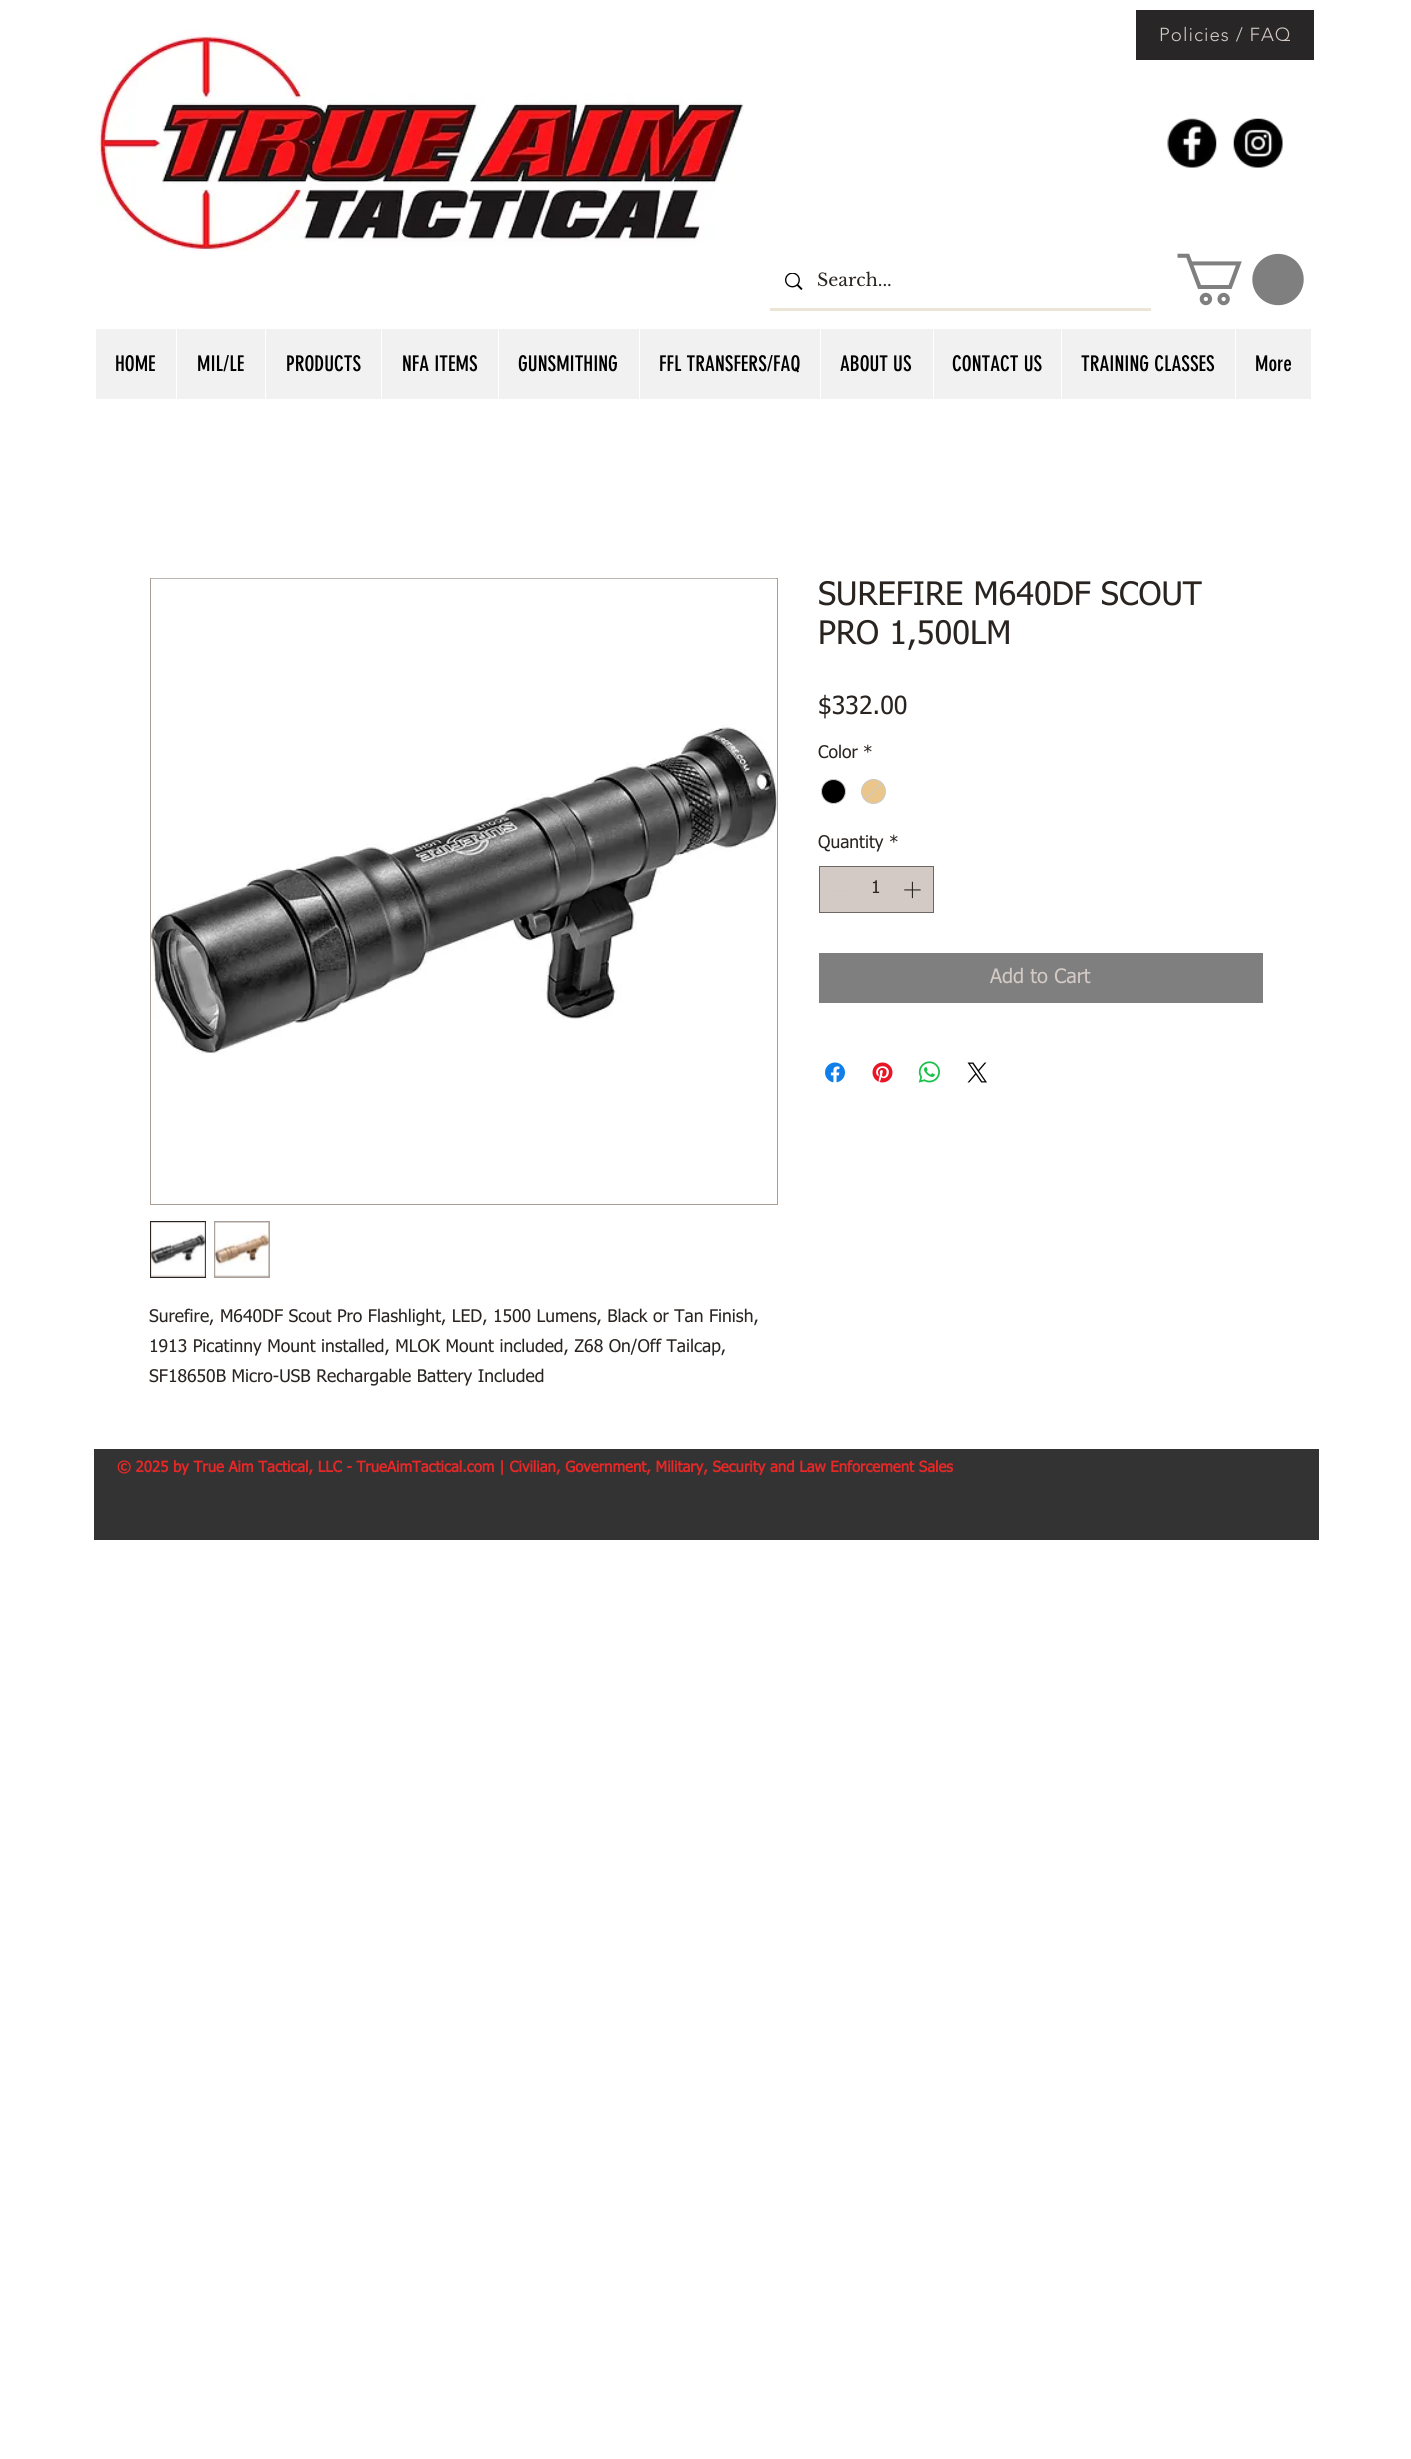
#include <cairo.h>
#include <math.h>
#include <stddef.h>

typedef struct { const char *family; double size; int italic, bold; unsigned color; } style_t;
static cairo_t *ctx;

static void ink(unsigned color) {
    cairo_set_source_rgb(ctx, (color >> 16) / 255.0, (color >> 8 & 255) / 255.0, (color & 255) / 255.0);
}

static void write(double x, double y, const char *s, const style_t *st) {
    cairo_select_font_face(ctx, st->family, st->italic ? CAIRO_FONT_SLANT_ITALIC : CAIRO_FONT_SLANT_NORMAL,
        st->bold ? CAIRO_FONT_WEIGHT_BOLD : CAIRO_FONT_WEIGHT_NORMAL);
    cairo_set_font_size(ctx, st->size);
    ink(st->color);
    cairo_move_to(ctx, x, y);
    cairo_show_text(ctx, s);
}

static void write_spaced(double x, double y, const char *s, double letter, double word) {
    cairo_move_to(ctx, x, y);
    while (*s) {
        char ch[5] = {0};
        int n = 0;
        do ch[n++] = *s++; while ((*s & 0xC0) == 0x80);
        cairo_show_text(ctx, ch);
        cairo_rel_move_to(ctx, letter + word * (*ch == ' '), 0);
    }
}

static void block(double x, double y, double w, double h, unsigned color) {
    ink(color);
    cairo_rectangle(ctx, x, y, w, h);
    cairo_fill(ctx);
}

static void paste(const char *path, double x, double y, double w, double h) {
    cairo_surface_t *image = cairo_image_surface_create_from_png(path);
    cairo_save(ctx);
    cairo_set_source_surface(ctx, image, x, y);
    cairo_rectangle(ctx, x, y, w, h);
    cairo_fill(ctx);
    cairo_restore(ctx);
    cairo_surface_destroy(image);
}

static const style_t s1 = {"Libre Baskerville", 17.5, 0, 0, 0x2a2421};
static const style_t s2 = {"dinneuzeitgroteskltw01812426", 21.25, 0, 0, 0x000000};
static const style_t s3 = {"tahoma", 32.5, 0, 0, 0x2a2421};
static const style_t s4 = {"tahoma", 25, 0, 0, 0x2a2421};
static const style_t s5 = {"tahoma", 17.5, 0, 0, 0x2a2421};
static const style_t s6 = {"tahoma", 20, 0, 0, 0xd4cac5};
static const style_t s7 = {"tahoma", 15, 0, 1, 0xe82727};

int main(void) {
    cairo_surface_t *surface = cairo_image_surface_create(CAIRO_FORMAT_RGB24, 1411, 2459);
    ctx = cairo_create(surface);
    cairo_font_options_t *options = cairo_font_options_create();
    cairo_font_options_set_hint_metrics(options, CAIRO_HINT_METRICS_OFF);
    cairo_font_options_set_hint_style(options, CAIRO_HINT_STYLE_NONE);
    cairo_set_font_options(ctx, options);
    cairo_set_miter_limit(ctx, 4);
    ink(0xffffff);
    cairo_paint(ctx);
    paste("pic1.png", 96, 30, 648, 221);
    block(1136, 10, 178, 50, 0x282626);
    cairo_select_font_face(ctx, "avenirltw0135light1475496 Light", CAIRO_FONT_SLANT_NORMAL, CAIRO_FONT_WEIGHT_NORMAL);
    cairo_set_font_size(ctx, 18.75);
    ink(0xd4cac5);
    write_spaced(1159, 41, "Policies / FAQ", 1, 0);
    paste("pic2.png", 1167, 118, 50, 50);
    paste("pic3.png", 1233, 118, 50, 50);
    block(770, 308, 381, 3, 0xebe5d6);
    paste("pic4.png", 785, 273, 18, 17);
    write(817, 286, "Search...", &s1);
    paste("pic5.png", 1177, 253, 127, 53);
    block(96, 329, 1215, 70, 0xf1f1f1);
    write(115, 371, "HOME", &s2);
    block(176, 329, 1, 70, 0xffffff);
    write(197, 371, "MIL/LE", &s2);
    block(265, 329, 1, 70, 0xffffff);
    write(286, 371, "PRODUCTS", &s2);
    block(381, 329, 1, 70, 0xffffff);
    write(402, 371, "NFA ITEMS", &s2);
    block(498, 329, 1, 70, 0xffffff);
    write(518, 371, "GUNSMITHING", &s2);
    block(639, 329, 1, 70, 0xffffff);
    write(659, 371, "FFL TRANSFERS/FAQ", &s2);
    block(820, 329, 1, 70, 0xffffff);
    write(840, 371, "ABOUT US", &s2);
    block(933, 329, 1, 70, 0xffffff);
    write(952, 371, "CONTACT US", &s2);
    block(1061, 329, 1, 70, 0xffffff);
    write(1081, 371, "TRAINING CLASSES", &s2);
    block(1235, 329, 1, 70, 0xffffff);
    write(1255, 371, "More", &s2);
    write(818, 605, "SUREFIRE M640DF SCOUT", &s3);
    write(818, 644, "PRO 1,500LM", &s3);
    write(818, 714, "$332.00", &s4);
    write(818, 758, "Color", &s5);
    write(863, 758, "*", &s5);
    ink(0x000000);
    cairo_new_path(ctx);
    cairo_arc(ctx, 833.5, 791.5, 12, 0, 2 * M_PI);
    cairo_fill_preserve(ctx);
    ink(0xc9c9c9);
    cairo_set_line_width(ctx, 1);
    cairo_stroke(ctx);
    ink(0xebc68a);
    cairo_arc(ctx, 873.5, 791.5, 12, 0, 2 * M_PI);
    cairo_fill_preserve(ctx);
    ink(0xc9c9c9);
    cairo_stroke(ctx);
    cairo_new_path(ctx);
    cairo_move_to(ctx, 882, 783.5);
    cairo_line_to(ctx, 866, 799.5);
    cairo_line_to(ctx, 865.5, 798.5);
    cairo_line_to(ctx, 881.5, 782.5);
    cairo_close_path(ctx);
    cairo_fill(ctx);
    write(818, 848, "Quantity", &s5);
    write(889, 848, "*", &s5);
    ink(0xd4cac5);
    cairo_rectangle(ctx, 819.5, 866.5, 114, 46);
    cairo_fill_preserve(ctx);
    ink(0x6e6663);
    cairo_stroke(ctx);
    block(833, 890, 17, 1, 0xcec9c6);
    write(871, 893, "1", &s5);
    paste("pic6.png", 904, 881, 17, 18);
    block(819, 953, 444, 50, 0x7f7f7f);
    write(990, 983, "Add to Cart", &s6);
    paste("pic7.png", 825, 1062, 20, 21);
    paste("pic8.png", 872, 1062, 21, 21);
    paste("pic9.png", 918, 1061, 22, 22);
    paste("pic10.png", 967, 1062, 20, 21);
    cairo_rectangle(ctx, 150.5, 578.5, 627, 626);
    ink(0xa99e98);
    cairo_stroke(ctx);
    paste("pic11.png", 151, 578, 626, 476);
    cairo_rectangle(ctx, 150.5, 1221.5, 55, 56);
    cairo_fill_preserve(ctx);
    ink(0x2a2421);
    cairo_stroke(ctx);
    paste("pic12.png", 151, 1222, 55, 55);
    block(214, 1221, 56, 57, 0xa99e98);
    paste("pic13.png", 214, 1222, 56, 55);
    write(149, 1322, "Surefire, M640DF Scout Pro Flashlight, LED, 1500 Lumens, Black or Tan Finish,", &s5);
    write(149, 1352, "1913 Picatinny Mount installed, MLOK Mount included, Z68 On/Off Tailcap,", &s5);
    write(149, 1382, "SF18650B Micro-USB Rechargable Battery Included", &s5);
    block(94, 1449, 1225, 91, 0x333333);
    write(117, 1472, "© 2025 by True Aim Tactical, LLC - TrueAimTactical.com | Civilian, Government, Military, Security and Law Enforcement Sales", &s7);
    cairo_surface_write_to_png(surface, "screenshot.png");
    cairo_font_options_destroy(options);
    cairo_destroy(ctx);
    cairo_surface_destroy(surface);
    return 0;
}
